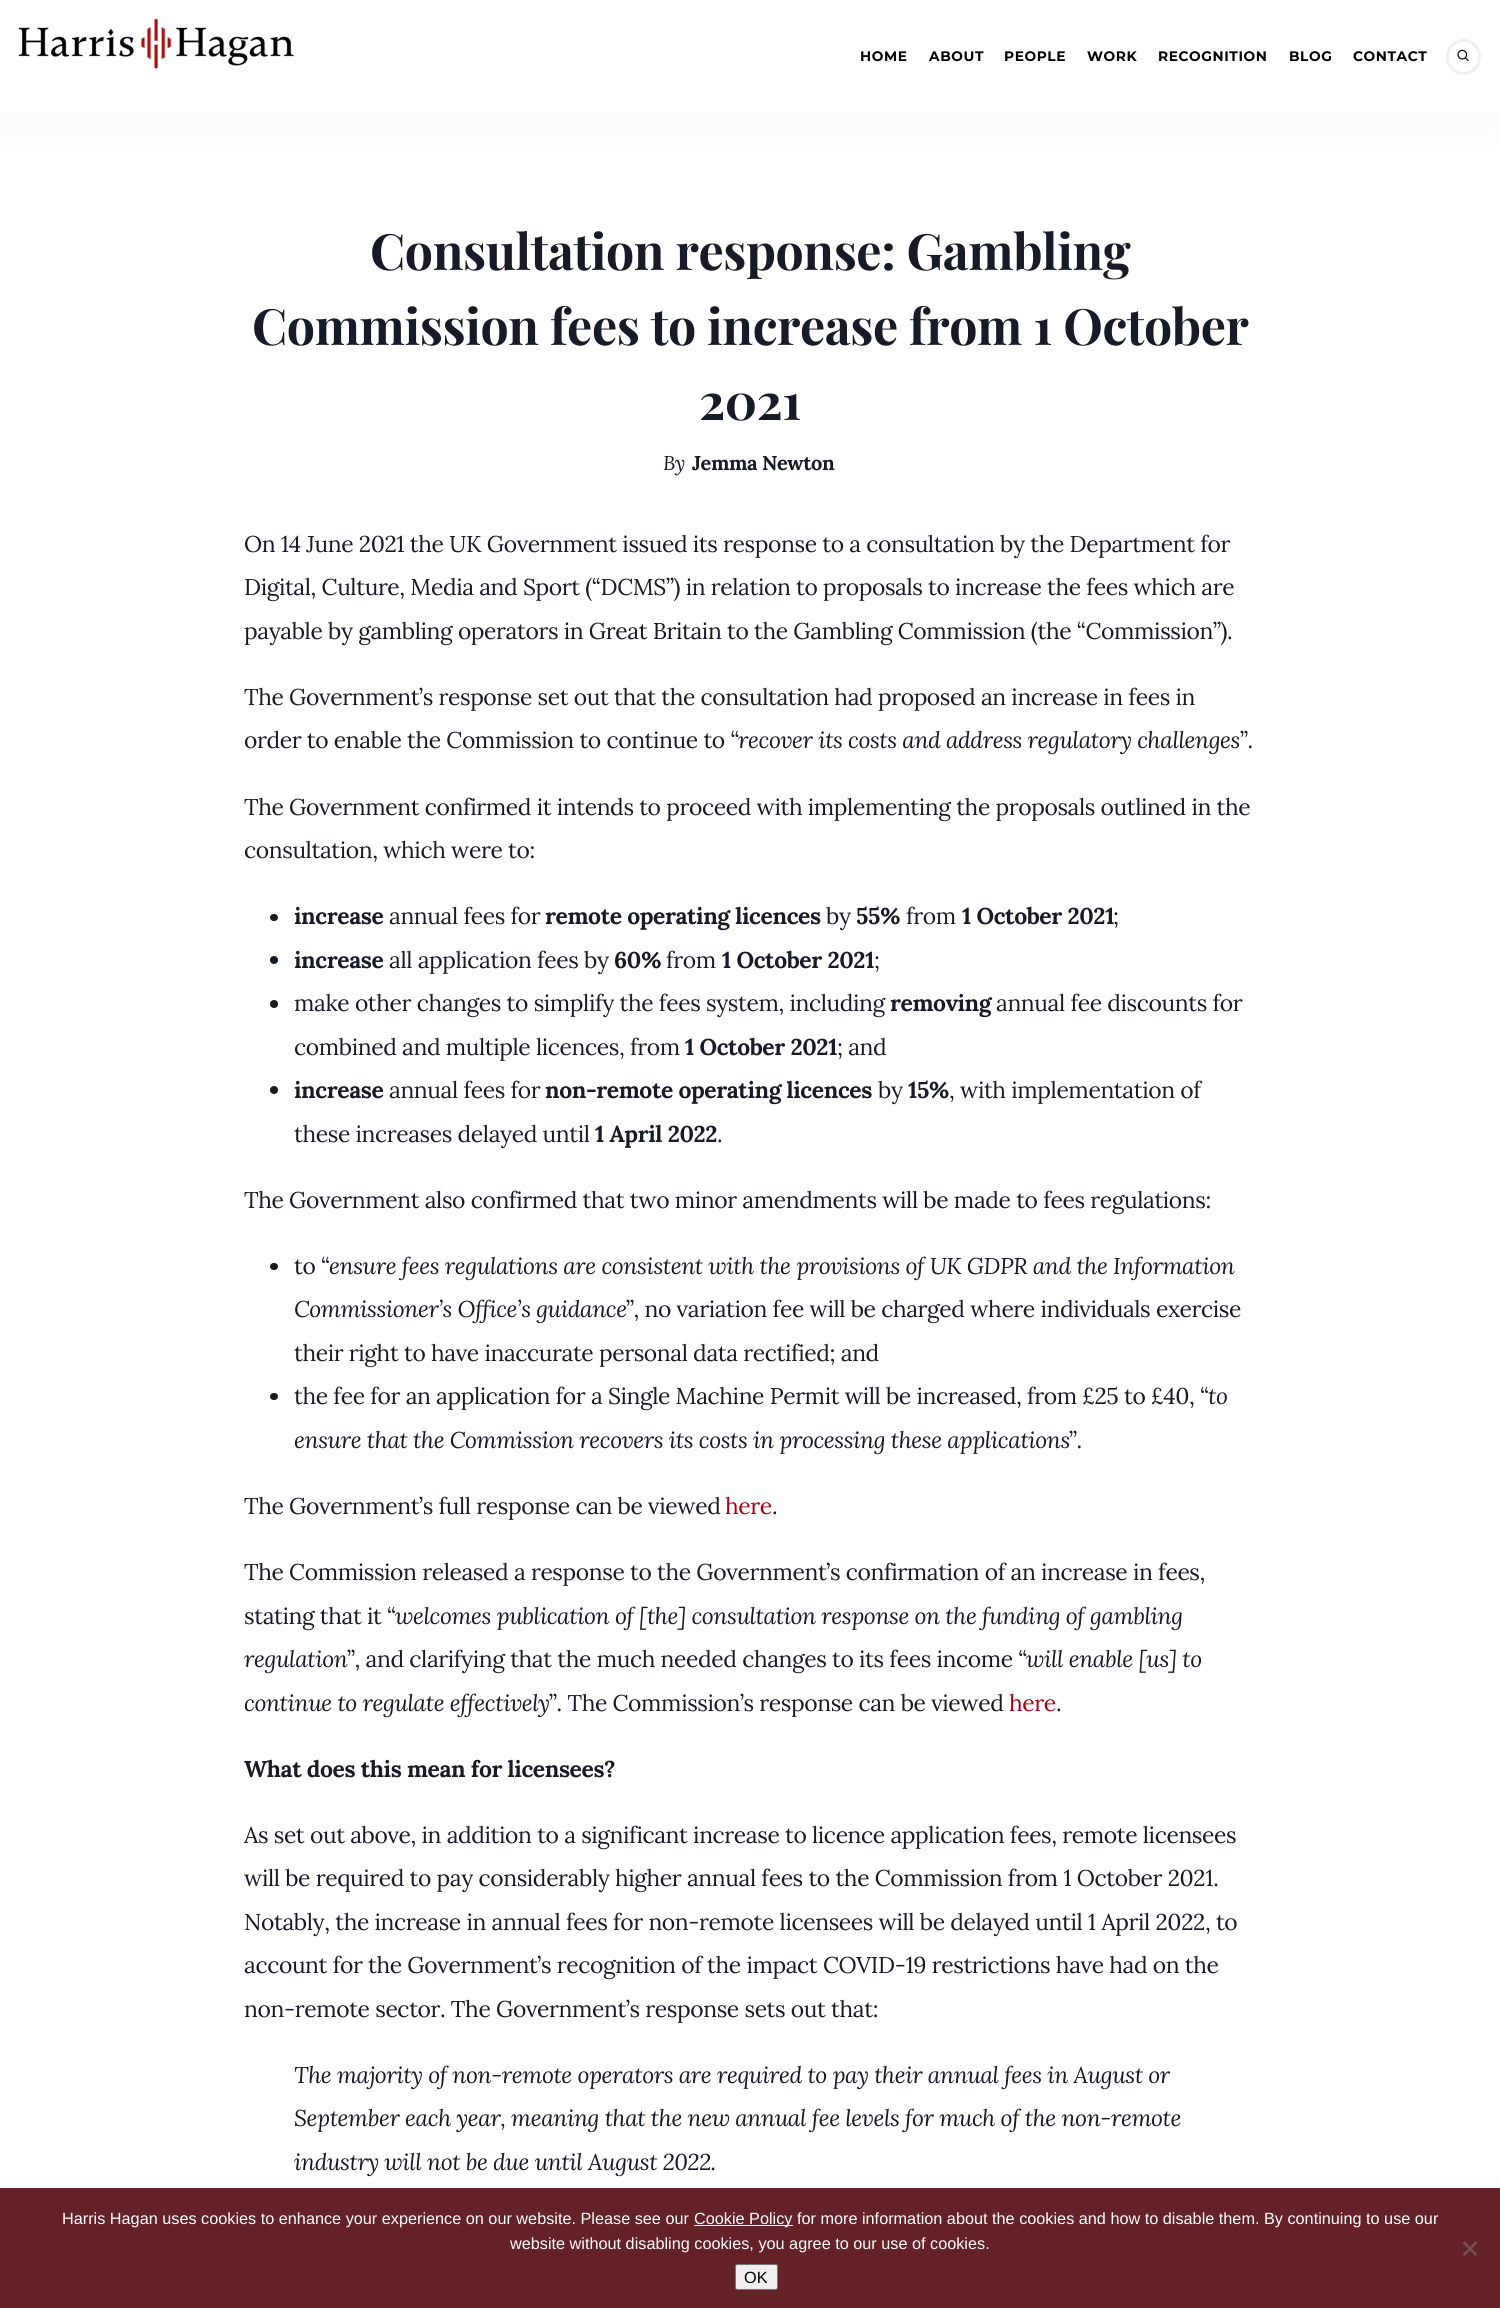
#include <cairo.h>
#include <math.h>
#include <stddef.h>

typedef struct { const char *family; double size; int italic, bold; unsigned color; } style_t;
static cairo_t *ctx;

static void ink(unsigned color) {
    cairo_set_source_rgb(ctx, (color >> 16) / 255.0, (color >> 8 & 255) / 255.0, (color & 255) / 255.0);
}

static void write(double x, double y, const char *s, const style_t *st) {
    cairo_select_font_face(ctx, st->family, st->italic ? CAIRO_FONT_SLANT_ITALIC : CAIRO_FONT_SLANT_NORMAL,
        st->bold ? CAIRO_FONT_WEIGHT_BOLD : CAIRO_FONT_WEIGHT_NORMAL);
    cairo_set_font_size(ctx, st->size);
    ink(st->color);
    cairo_move_to(ctx, x, y);
    cairo_show_text(ctx, s);
}

static void write_spaced(double x, double y, const char *s, double letter, double word) {
    cairo_move_to(ctx, x, y);
    while (*s) {
        char ch[5] = {0};
        int n = 0;
        do ch[n++] = *s++; while ((*s & 0xC0) == 0x80);
        cairo_show_text(ctx, ch);
        cairo_rel_move_to(ctx, letter + word * (*ch == ' '), 0);
    }
}

static void block(double x, double y, double w, double h, unsigned color) {
    ink(color);
    cairo_rectangle(ctx, x, y, w, h);
    cairo_fill(ctx);
}

static void round_path(double x, double y, double w, double h, double r) {
    cairo_new_sub_path(ctx);
    cairo_arc(ctx, x + w - r, y + h - r, r, 0, M_PI / 2);
    cairo_arc(ctx, x + r, y + h - r, r, M_PI / 2, M_PI);
    cairo_arc(ctx, x + r, y + r, r, M_PI, 1.5 * M_PI);
    cairo_arc(ctx, x + w - r, y + r, r, 1.5 * M_PI, 2 * M_PI);
    cairo_close_path(ctx);
}

static void blur_box(double x, double y, double w, double h, double r, double blur, double alpha) {
    cairo_push_group_with_content(ctx, CAIRO_CONTENT_ALPHA);
    cairo_set_operator(ctx, CAIRO_OPERATOR_SOURCE);
    for (int i = 15; i >= -15 && fmin(w, h) + blur * i / 3 > 0; i -= 2) {
        double e = blur * i / 6;
        cairo_set_source_rgba(ctx, 0, 0, 0, alpha * erfc((i - 1) / 8.5) / 2);
        round_path(x - e, y - e, w + 2 * e, h + 2 * e, fmax(0, fmin(r + e + blur * .6, fmin(w, h) / 2 + e)));
        cairo_fill(ctx);
    }
    cairo_pattern_t *soft = cairo_pop_group(ctx);
    cairo_mask(ctx, soft);
    cairo_pattern_destroy(soft);
}

static void paste(const char *path, double x, double y, double w, double h) {
    cairo_surface_t *image = cairo_image_surface_create_from_png(path);
    cairo_save(ctx);
    cairo_set_source_surface(ctx, image, x, y);
    cairo_rectangle(ctx, x, y, w, h);
    cairo_fill(ctx);
    cairo_restore(ctx);
    cairo_surface_destroy(image);
}

static const style_t s1 = {"Liberation Sans", 16.25, 0, 0, 0xffffff};
static const style_t s2 = {"Liberation Sans", 16.25, 0, 0, 0x000000};

int main(void) {
    cairo_surface_t *surface = cairo_image_surface_create(CAIRO_FORMAT_RGB24, 1500, 2308);
    ctx = cairo_create(surface);
    cairo_font_options_t *options = cairo_font_options_create();
    cairo_font_options_set_hint_metrics(options, CAIRO_HINT_METRICS_OFF);
    cairo_font_options_set_hint_style(options, CAIRO_HINT_STYLE_NONE);
    cairo_set_font_options(ctx, options);
    cairo_set_miter_limit(ctx, 4);
    ink(0xffffff);
    cairo_paint(ctx);
    ink(0x091f43);
    blur_box(6, 16, 1488, 100, 0, 25, 0.05);
    block(0, 0, 1500, 113, 0xffffff);
    paste("pic1.png", 18, 18, 276, 51);
    cairo_select_font_face(ctx, "Montserrat Thin", CAIRO_FONT_SLANT_NORMAL, CAIRO_FONT_WEIGHT_NORMAL);
    cairo_set_font_size(ctx, 13.75);
    ink(0x000000);
    write_spaced(860, 61, "HOME", 0.6, 0);
    write_spaced(929, 61, "ABOUT", 0.6, 0);
    write_spaced(1004, 61, "PEOPLE", 0.6, 0);
    write_spaced(1087, 61, "WORK", 0.6, 0);
    write_spaced(1158, 61, "RECOGNITION", 0.6, 0);
    write_spaced(1289, 61, "BLOG", 0.6, 0);
    write_spaced(1353, 61, "CONTACT", 0.6, 0);
    paste("pic2.png", 1457, 49, 12, 13);
    round_path(1447.5, 40.5, 32, 33, 16);
    ink(0xecf0f3);
    cairo_set_line_width(ctx, 3);
    cairo_stroke(ctx);
    cairo_select_font_face(ctx, "Playfair Display", CAIRO_FONT_SLANT_NORMAL, CAIRO_FONT_WEIGHT_BOLD);
    cairo_set_font_size(ctx, 50);
    ink(0x171b27);
    write_spaced(370, 270, "Consultation response: Gambling", -0.4, 0);
    write_spaced(252, 345, "Commission fees to increase from 1 October", -0.4, 0);
    write_spaced(699, 420, "2021", -0.4, 0);
    cairo_select_font_face(ctx, "Lora", CAIRO_FONT_SLANT_ITALIC, CAIRO_FONT_WEIGHT_NORMAL);
    cairo_set_font_size(ctx, 20);
    write_spaced(663, 470, "By", -0.4, 0);
    cairo_select_font_face(ctx, "Lora", CAIRO_FONT_SLANT_NORMAL, CAIRO_FONT_WEIGHT_BOLD);
    write_spaced(692, 470, "Jemma Newton", -0.4, 0);
    cairo_select_font_face(ctx, "Lora", CAIRO_FONT_SLANT_NORMAL, CAIRO_FONT_WEIGHT_NORMAL);
    cairo_set_font_size(ctx, 22.85);
    write_spaced(244, 552, "On 14 June 2021 the UK Government issued its response to a consultation by the Department for", -0.4, 0);
    write_spaced(244, 595, "Digital, Culture, Media and Sport (“DCMS”) in relation to proposals to increase the fees which are", -0.4, 0);
    write_spaced(244, 639, "payable by gambling operators in Great Britain to the Gambling Commission (the “Commission”).", -0.4, 0);
    write_spaced(244, 705, "The Government’s response set out that the consultation had proposed an increase in fees in", -0.4, 0);
    write_spaced(244, 748, "order to enable the Commission to continue to “", -0.4, 0);
    cairo_select_font_face(ctx, "Lora", CAIRO_FONT_SLANT_ITALIC, CAIRO_FONT_WEIGHT_NORMAL);
    write_spaced(738, 748, "recover its costs and address regulatory challenges", -0.4, 0);
    cairo_select_font_face(ctx, "Lora", CAIRO_FONT_SLANT_NORMAL, CAIRO_FONT_WEIGHT_NORMAL);
    write_spaced(1240, 748, "”.", -0.4, 0);
    write_spaced(244, 815, "The Government confirmed it intends to proceed with implementing the proposals outlined in the", -0.4, 0);
    write_spaced(244, 858, "consultation, which were to:", -0.4, 0);
    round_path(270, 914, 8, 7, 3.5);
    cairo_fill(ctx);
    cairo_select_font_face(ctx, "Lora", CAIRO_FONT_SLANT_NORMAL, CAIRO_FONT_WEIGHT_BOLD);
    write_spaced(294, 924, "increase", -0.4, 0);
    cairo_select_font_face(ctx, "Lora", CAIRO_FONT_SLANT_NORMAL, CAIRO_FONT_WEIGHT_NORMAL);
    write_spaced(389, 924, "annual fees for", -0.4, 0);
    cairo_select_font_face(ctx, "Lora", CAIRO_FONT_SLANT_NORMAL, CAIRO_FONT_WEIGHT_BOLD);
    write_spaced(545, 924, "remote operating licences", -0.4, 0);
    cairo_select_font_face(ctx, "Lora", CAIRO_FONT_SLANT_NORMAL, CAIRO_FONT_WEIGHT_NORMAL);
    write_spaced(826, 924, "by", -0.4, 0);
    cairo_select_font_face(ctx, "Lora", CAIRO_FONT_SLANT_NORMAL, CAIRO_FONT_WEIGHT_BOLD);
    write_spaced(856, 924, "55%", -0.4, 0);
    cairo_select_font_face(ctx, "Lora", CAIRO_FONT_SLANT_NORMAL, CAIRO_FONT_WEIGHT_NORMAL);
    write_spaced(906, 924, "from", -0.4, 0);
    cairo_select_font_face(ctx, "Lora", CAIRO_FONT_SLANT_NORMAL, CAIRO_FONT_WEIGHT_BOLD);
    write_spaced(962, 924, "1 October 2021", -0.4, 0);
    cairo_select_font_face(ctx, "Lora", CAIRO_FONT_SLANT_NORMAL, CAIRO_FONT_WEIGHT_NORMAL);
    write_spaced(1113, 924, ";", -0.4, 0);
    cairo_new_path(ctx);
    cairo_arc(ctx, 274, 960, 4, 0, 2 * M_PI);
    cairo_fill(ctx);
    cairo_select_font_face(ctx, "Lora", CAIRO_FONT_SLANT_NORMAL, CAIRO_FONT_WEIGHT_BOLD);
    write_spaced(294, 968, "increase", -0.4, 0);
    cairo_select_font_face(ctx, "Lora", CAIRO_FONT_SLANT_NORMAL, CAIRO_FONT_WEIGHT_NORMAL);
    write_spaced(389, 968, "all application fees by", -0.4, 0);
    cairo_select_font_face(ctx, "Lora", CAIRO_FONT_SLANT_NORMAL, CAIRO_FONT_WEIGHT_BOLD);
    write_spaced(614, 968, "60%", -0.4, 0);
    cairo_select_font_face(ctx, "Lora", CAIRO_FONT_SLANT_NORMAL, CAIRO_FONT_WEIGHT_NORMAL);
    write_spaced(666, 968, "from", -0.4, 0);
    cairo_select_font_face(ctx, "Lora", CAIRO_FONT_SLANT_NORMAL, CAIRO_FONT_WEIGHT_BOLD);
    write_spaced(722, 968, "1 October 2021", -0.4, 0);
    cairo_select_font_face(ctx, "Lora", CAIRO_FONT_SLANT_NORMAL, CAIRO_FONT_WEIGHT_NORMAL);
    write_spaced(874, 968, ";", -0.4, 0);
    cairo_new_path(ctx);
    cairo_arc(ctx, 274, 1004, 4, 0, 2 * M_PI);
    cairo_fill(ctx);
    write_spaced(294, 1011, "make other changes to simplify the fees system, including", -0.4, 0);
    cairo_select_font_face(ctx, "Lora", CAIRO_FONT_SLANT_NORMAL, CAIRO_FONT_WEIGHT_BOLD);
    write_spaced(890, 1011, "removing", -0.4, 0);
    cairo_select_font_face(ctx, "Lora", CAIRO_FONT_SLANT_NORMAL, CAIRO_FONT_WEIGHT_NORMAL);
    write_spaced(996, 1011, "annual fee discounts for", -0.4, 0);
    write_spaced(294, 1055, "combined and multiple licences, from", -0.4, 0);
    cairo_select_font_face(ctx, "Lora", CAIRO_FONT_SLANT_NORMAL, CAIRO_FONT_WEIGHT_BOLD);
    write_spaced(685, 1055, "1 October 2021", -0.4, 0);
    cairo_select_font_face(ctx, "Lora", CAIRO_FONT_SLANT_NORMAL, CAIRO_FONT_WEIGHT_NORMAL);
    write_spaced(837, 1055, "; and", -0.4, 0);
    cairo_new_path(ctx);
    cairo_arc(ctx, 274, 1090, 4, 0, 2 * M_PI);
    cairo_fill(ctx);
    cairo_select_font_face(ctx, "Lora", CAIRO_FONT_SLANT_NORMAL, CAIRO_FONT_WEIGHT_BOLD);
    write_spaced(294, 1098, "increase", -0.4, 0);
    cairo_select_font_face(ctx, "Lora", CAIRO_FONT_SLANT_NORMAL, CAIRO_FONT_WEIGHT_NORMAL);
    write_spaced(389, 1098, "annual fees for", -0.4, 0);
    cairo_select_font_face(ctx, "Lora", CAIRO_FONT_SLANT_NORMAL, CAIRO_FONT_WEIGHT_BOLD);
    write_spaced(545, 1098, "non-remote operating licences", -0.4, 0);
    cairo_select_font_face(ctx, "Lora", CAIRO_FONT_SLANT_NORMAL, CAIRO_FONT_WEIGHT_NORMAL);
    write_spaced(878, 1098, "by", -0.4, 0);
    cairo_select_font_face(ctx, "Lora", CAIRO_FONT_SLANT_NORMAL, CAIRO_FONT_WEIGHT_BOLD);
    write_spaced(908, 1098, "15%", -0.4, 0);
    cairo_select_font_face(ctx, "Lora", CAIRO_FONT_SLANT_NORMAL, CAIRO_FONT_WEIGHT_NORMAL);
    write_spaced(949, 1098, ", with implementation of", -0.4, 0);
    write_spaced(294, 1142, "these increases delayed until", -0.4, 0);
    cairo_select_font_face(ctx, "Lora", CAIRO_FONT_SLANT_NORMAL, CAIRO_FONT_WEIGHT_BOLD);
    write_spaced(595, 1142, "1 April 2022", -0.4, 0);
    cairo_select_font_face(ctx, "Lora", CAIRO_FONT_SLANT_NORMAL, CAIRO_FONT_WEIGHT_NORMAL);
    write_spaced(717, 1142, ".", -0.4, 0);
    write_spaced(244, 1208, "The Government also confirmed that two minor amendments will be made to fees regulations:", -0.4, 0);
    round_path(270, 1263, 8, 7, 3.5);
    cairo_fill(ctx);
    write_spaced(294, 1274, "to “", -0.4, 0);
    cairo_select_font_face(ctx, "Lora", CAIRO_FONT_SLANT_ITALIC, CAIRO_FONT_WEIGHT_NORMAL);
    write_spaced(329, 1274, "ensure fees regulations are consistent with the provisions of UK GDPR and the Information", -0.4, 0);
    write_spaced(294, 1317, "Commissioner’s Office’s guidance", -0.4, 0);
    cairo_select_font_face(ctx, "Lora", CAIRO_FONT_SLANT_NORMAL, CAIRO_FONT_WEIGHT_NORMAL);
    write_spaced(626, 1317, "”, no variation fee will be charged where individuals exercise", -0.4, 0);
    write_spaced(294, 1361, "their right to have inaccurate personal data rectified; and", -0.4, 0);
    round_path(270, 1393, 8, 7, 3.5);
    cairo_fill(ctx);
    write_spaced(294, 1404, "the fee for an application for a Single Machine Permit will be increased, from £25 to £40, “", -0.4, 0);
    cairo_select_font_face(ctx, "Lora", CAIRO_FONT_SLANT_ITALIC, CAIRO_FONT_WEIGHT_NORMAL);
    write_spaced(1208, 1404, "to", -0.4, 0);
    write_spaced(294, 1448, "ensure that the Commission recovers its costs in processing these applications", -0.4, 0);
    cairo_select_font_face(ctx, "Lora", CAIRO_FONT_SLANT_NORMAL, CAIRO_FONT_WEIGHT_NORMAL);
    write_spaced(1069, 1448, "”.", -0.4, 0);
    write_spaced(244, 1514, "The Government’s full response can be viewed", -0.4, 0);
    ink(0xa80011);
    write_spaced(725, 1514, "here", -0.4, 0);
    ink(0x171b27);
    write_spaced(772, 1514, ".", -0.4, 0);
    write_spaced(244, 1580, "The Commission released a response to the Government’s confirmation of an increase in fees,", -0.4, 0);
    write_spaced(244, 1624, "stating that it “", -0.4, 0);
    cairo_select_font_face(ctx, "Lora", CAIRO_FONT_SLANT_ITALIC, CAIRO_FONT_WEIGHT_NORMAL);
    write_spaced(395, 1624, "welcomes publication of [the] consultation response on the funding of gambling", -0.4, 0);
    write_spaced(244, 1667, "regulation", -0.4, 0);
    cairo_select_font_face(ctx, "Lora", CAIRO_FONT_SLANT_NORMAL, CAIRO_FONT_WEIGHT_NORMAL);
    write_spaced(347, 1667, "”, and clarifying that the much needed changes to its fees income “", -0.4, 0);
    cairo_select_font_face(ctx, "Lora", CAIRO_FONT_SLANT_ITALIC, CAIRO_FONT_WEIGHT_NORMAL);
    write_spaced(1026, 1667, "will enable [us] to", -0.4, 0);
    write_spaced(244, 1711, "continue to regulate effectively", -0.4, 0);
    cairo_select_font_face(ctx, "Lora", CAIRO_FONT_SLANT_NORMAL, CAIRO_FONT_WEIGHT_NORMAL);
    write_spaced(549, 1711, "”. The Commission’s response can be viewed", -0.4, 0);
    ink(0xa80011);
    write_spaced(1009, 1711, "here", -0.4, 0);
    ink(0x171b27);
    write_spaced(1056, 1711, ".", -0.4, 0);
    cairo_select_font_face(ctx, "Lora", CAIRO_FONT_SLANT_NORMAL, CAIRO_FONT_WEIGHT_BOLD);
    write_spaced(244, 1777, "What does this mean for licensees?", -0.4, 0);
    cairo_select_font_face(ctx, "Lora", CAIRO_FONT_SLANT_NORMAL, CAIRO_FONT_WEIGHT_NORMAL);
    write_spaced(244, 1843, "As set out above, in addition to a significant increase to licence application fees, remote licensees", -0.4, 0);
    write_spaced(244, 1886, "will be required to pay considerably higher annual fees to the Commission from 1 October 2021.", -0.4, 0);
    write_spaced(244, 1930, "Notably, the increase in annual fees for non-remote licensees will be delayed until 1 April 2022, to", -0.4, 0);
    write_spaced(244, 1973, "account for the Government’s recognition of the impact COVID-19 restrictions have had on the", -0.4, 0);
    write_spaced(244, 2017, "non-remote sector. The Government’s response sets out that:", -0.4, 0);
    cairo_select_font_face(ctx, "Lora", CAIRO_FONT_SLANT_ITALIC, CAIRO_FONT_WEIGHT_NORMAL);
    write_spaced(294, 2083, "The majority of non-remote operators are required to pay their annual fees in August or", -0.4, 0);
    write_spaced(294, 2126, "September each year, meaning that the new annual fee levels for much of the non-remote", -0.4, 0);
    write_spaced(294, 2170, "industry will not be due until August 2022.", -0.4, 0);
    block(0, 2188, 1500, 120, 0x642127);
    write(62, 2224, "Harris Hagan uses cookies to enhance your experience on our website. Please see our", &s1);
    block(694, 2225, 99, 1, 0xffffff);
    write(694, 2224, "Cookie Policy for more information about the cookies and how to disable them. By continuing to use our", &s1);
    write(510, 2249, "website without disabling cookies, you agree to our use of cookies.", &s1);
    ink(0x725154);
    cairo_new_path(ctx);
    cairo_move_to(ctx, 1475.5, 2241);
    cairo_line_to(ctx, 1477.5, 2243);
    cairo_line_to(ctx, 1464.5, 2256);
    cairo_line_to(ctx, 1462.5, 2254.5);
    cairo_close_path(ctx);
    cairo_fill(ctx);
    cairo_new_path(ctx);
    cairo_move_to(ctx, 1462.5, 2243);
    cairo_line_to(ctx, 1464.5, 2241);
    cairo_line_to(ctx, 1477.5, 2254.5);
    cairo_line_to(ctx, 1475.5, 2256);
    cairo_close_path(ctx);
    cairo_fill(ctx);
    ink(0xefefef);
    round_path(735.5, 2264.5, 42, 25, 2);
    cairo_fill_preserve(ctx);
    ink(0x767676);
    cairo_set_line_width(ctx, 1);
    cairo_stroke(ctx);
    write(744, 2283, "OK", &s2);
    cairo_surface_write_to_png(surface, "screenshot.png");
    cairo_font_options_destroy(options);
    cairo_destroy(ctx);
    cairo_surface_destroy(surface);
    return 0;
}
